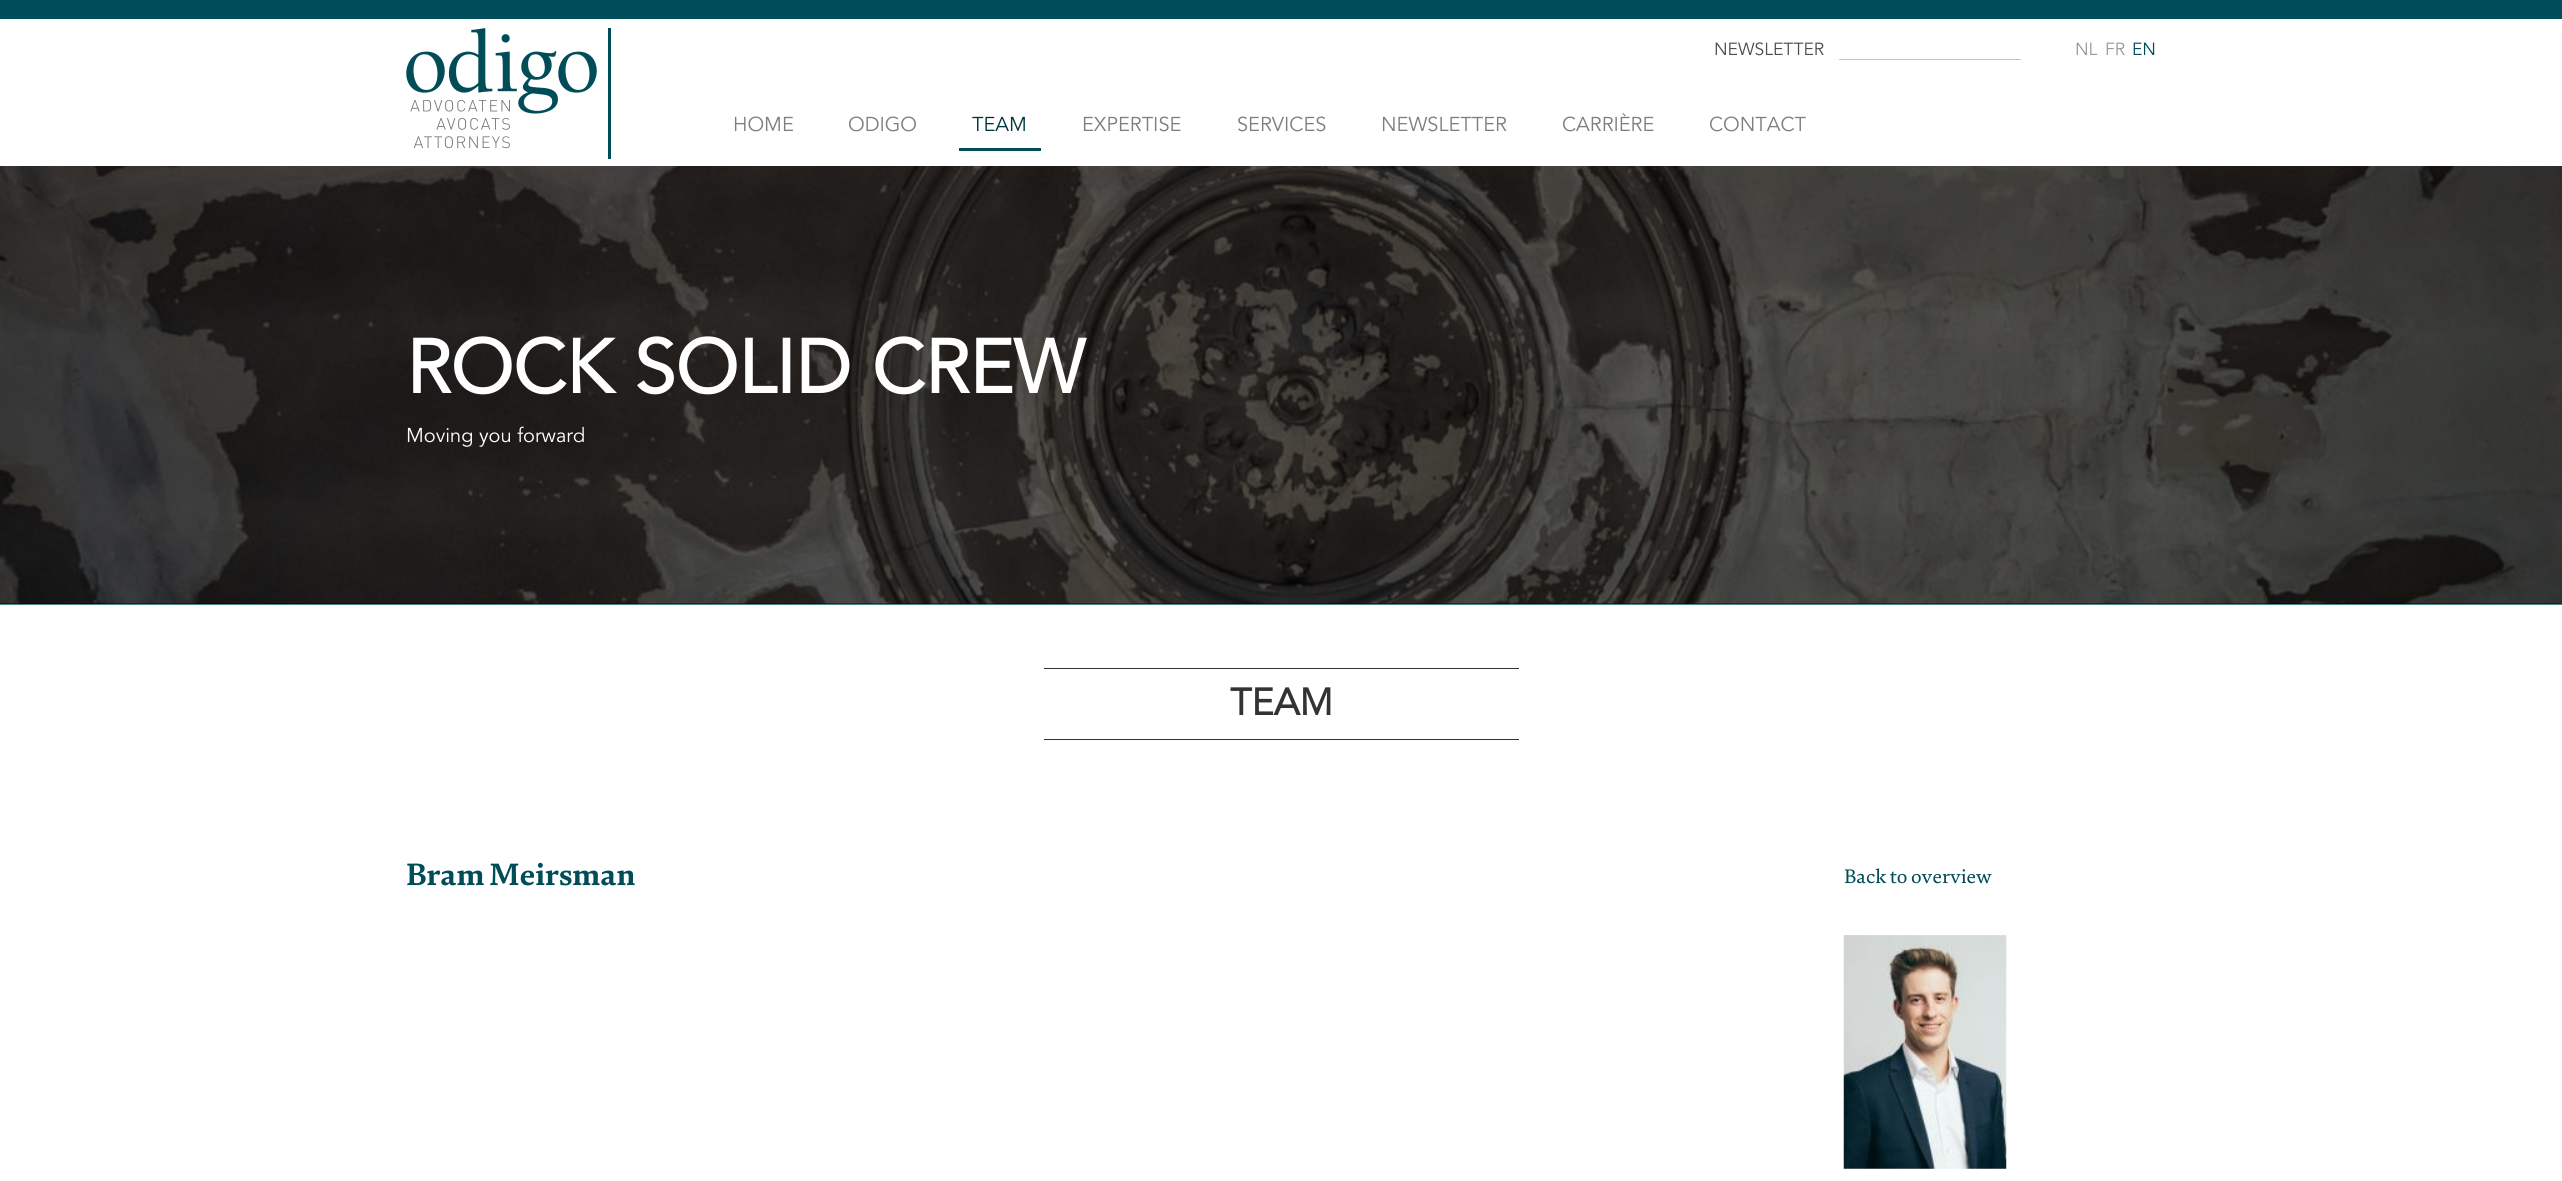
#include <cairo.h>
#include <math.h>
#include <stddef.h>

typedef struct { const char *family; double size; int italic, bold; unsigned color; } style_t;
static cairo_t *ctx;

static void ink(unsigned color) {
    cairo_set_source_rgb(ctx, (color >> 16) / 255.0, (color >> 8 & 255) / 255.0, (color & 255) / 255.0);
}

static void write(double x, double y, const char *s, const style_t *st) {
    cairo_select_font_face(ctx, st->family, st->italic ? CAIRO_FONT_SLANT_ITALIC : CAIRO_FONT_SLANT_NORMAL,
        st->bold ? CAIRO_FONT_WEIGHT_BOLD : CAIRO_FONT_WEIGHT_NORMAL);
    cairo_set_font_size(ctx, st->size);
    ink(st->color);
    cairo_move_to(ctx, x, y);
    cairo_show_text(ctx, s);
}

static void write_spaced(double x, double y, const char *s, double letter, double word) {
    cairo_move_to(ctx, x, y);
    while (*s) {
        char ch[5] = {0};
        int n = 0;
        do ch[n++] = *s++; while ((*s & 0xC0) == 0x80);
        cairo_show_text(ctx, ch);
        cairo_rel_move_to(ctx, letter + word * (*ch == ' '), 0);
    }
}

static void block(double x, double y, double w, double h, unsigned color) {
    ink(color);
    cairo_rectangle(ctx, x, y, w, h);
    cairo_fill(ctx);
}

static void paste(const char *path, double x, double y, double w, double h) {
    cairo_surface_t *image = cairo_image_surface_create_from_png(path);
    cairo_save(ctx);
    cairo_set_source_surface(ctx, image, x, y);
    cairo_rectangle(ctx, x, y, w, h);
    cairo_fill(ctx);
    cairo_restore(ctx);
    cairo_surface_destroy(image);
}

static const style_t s1 = {"Avenir", 17.5, 0, 0, 0x4d4d4d};
static const style_t s2 = {"Avenir", 17.5, 0, 0, 0x999999};
static const style_t s3 = {"Avenir", 17.5, 0, 0, 0x004c58};
static const style_t s4 = {"Avenir", 20, 0, 0, 0x7e7e7e};
static const style_t s5 = {"Avenir", 20, 0, 0, 0x00353e};
static const style_t s6 = {"Avenir", 75, 0, 1, 0xffffff};
static const style_t s7 = {"Avenir", 20, 0, 0, 0xffffff};
static const style_t s8 = {"Avenir", 37.5, 0, 1, 0x333333};

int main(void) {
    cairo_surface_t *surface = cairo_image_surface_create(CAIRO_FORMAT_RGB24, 2562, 1181);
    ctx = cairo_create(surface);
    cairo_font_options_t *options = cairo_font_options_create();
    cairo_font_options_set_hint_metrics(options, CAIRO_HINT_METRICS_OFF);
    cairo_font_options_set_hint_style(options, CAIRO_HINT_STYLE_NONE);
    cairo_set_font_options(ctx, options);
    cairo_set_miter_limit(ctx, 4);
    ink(0xffffff);
    cairo_paint(ctx);
    block(0, 0, 2562, 19, 0x004c58);
    paste("pic1.png", 406, 28, 205, 131);
    write(1714, 55, "NEWSLETTER", &s1);
    block(1839, 59, 182, 1, 0xc5c5c5);
    write(2075, 55, "NL", &s2);
    write(2105, 55, "FR", &s2);
    write(2132, 55, "EN", &s3);
    write(733, 131, "HOME", &s4);
    write(848, 131, "ODIGO", &s4);
    block(959, 148, 82, 3, 0x004c58);
    write(972, 131, "TEAM", &s5);
    write(1082, 131, "EXPERTISE", &s4);
    write(1237, 131, "SERVICES", &s4);
    write(1381, 131, "NEWSLETTER", &s4);
    write(1562, 131, "CARRIÈRE", &s4);
    write(1709, 131, "CONTACT", &s4);
    block(0, 604, 2562, 1, 0x4d828a);
    block(0, 166, 2562, 438, 0x000000);
    paste("pic2.png", 0, 166, 2562, 438);
    write(406, 393, "ROCK SOLID CREW", &s6);
    write(406, 442, "Moving you forward", &s7);
    block(1044, 668, 475, 1, 0x333333);
    block(1044, 739, 475, 1, 0x333333);
    write(1230, 715, "TEAM", &s8);
    cairo_select_font_face(ctx, "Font", CAIRO_FONT_SLANT_NORMAL, CAIRO_FONT_WEIGHT_BOLD);
    cairo_set_font_size(ctx, 31.25);
    ink(0x004c58);
    write_spaced(406, 885, "Bram Meirsman", 0, -1);
    cairo_select_font_face(ctx, "Font", CAIRO_FONT_SLANT_NORMAL, CAIRO_FONT_WEIGHT_NORMAL);
    cairo_set_font_size(ctx, 20);
    write_spaced(1844, 883, "Back to overview", 0, -1);
    paste("pic3.png", 1843, 935, 164, 234);
    cairo_surface_write_to_png(surface, "screenshot.png");
    cairo_font_options_destroy(options);
    cairo_destroy(ctx);
    cairo_surface_destroy(surface);
    return 0;
}
